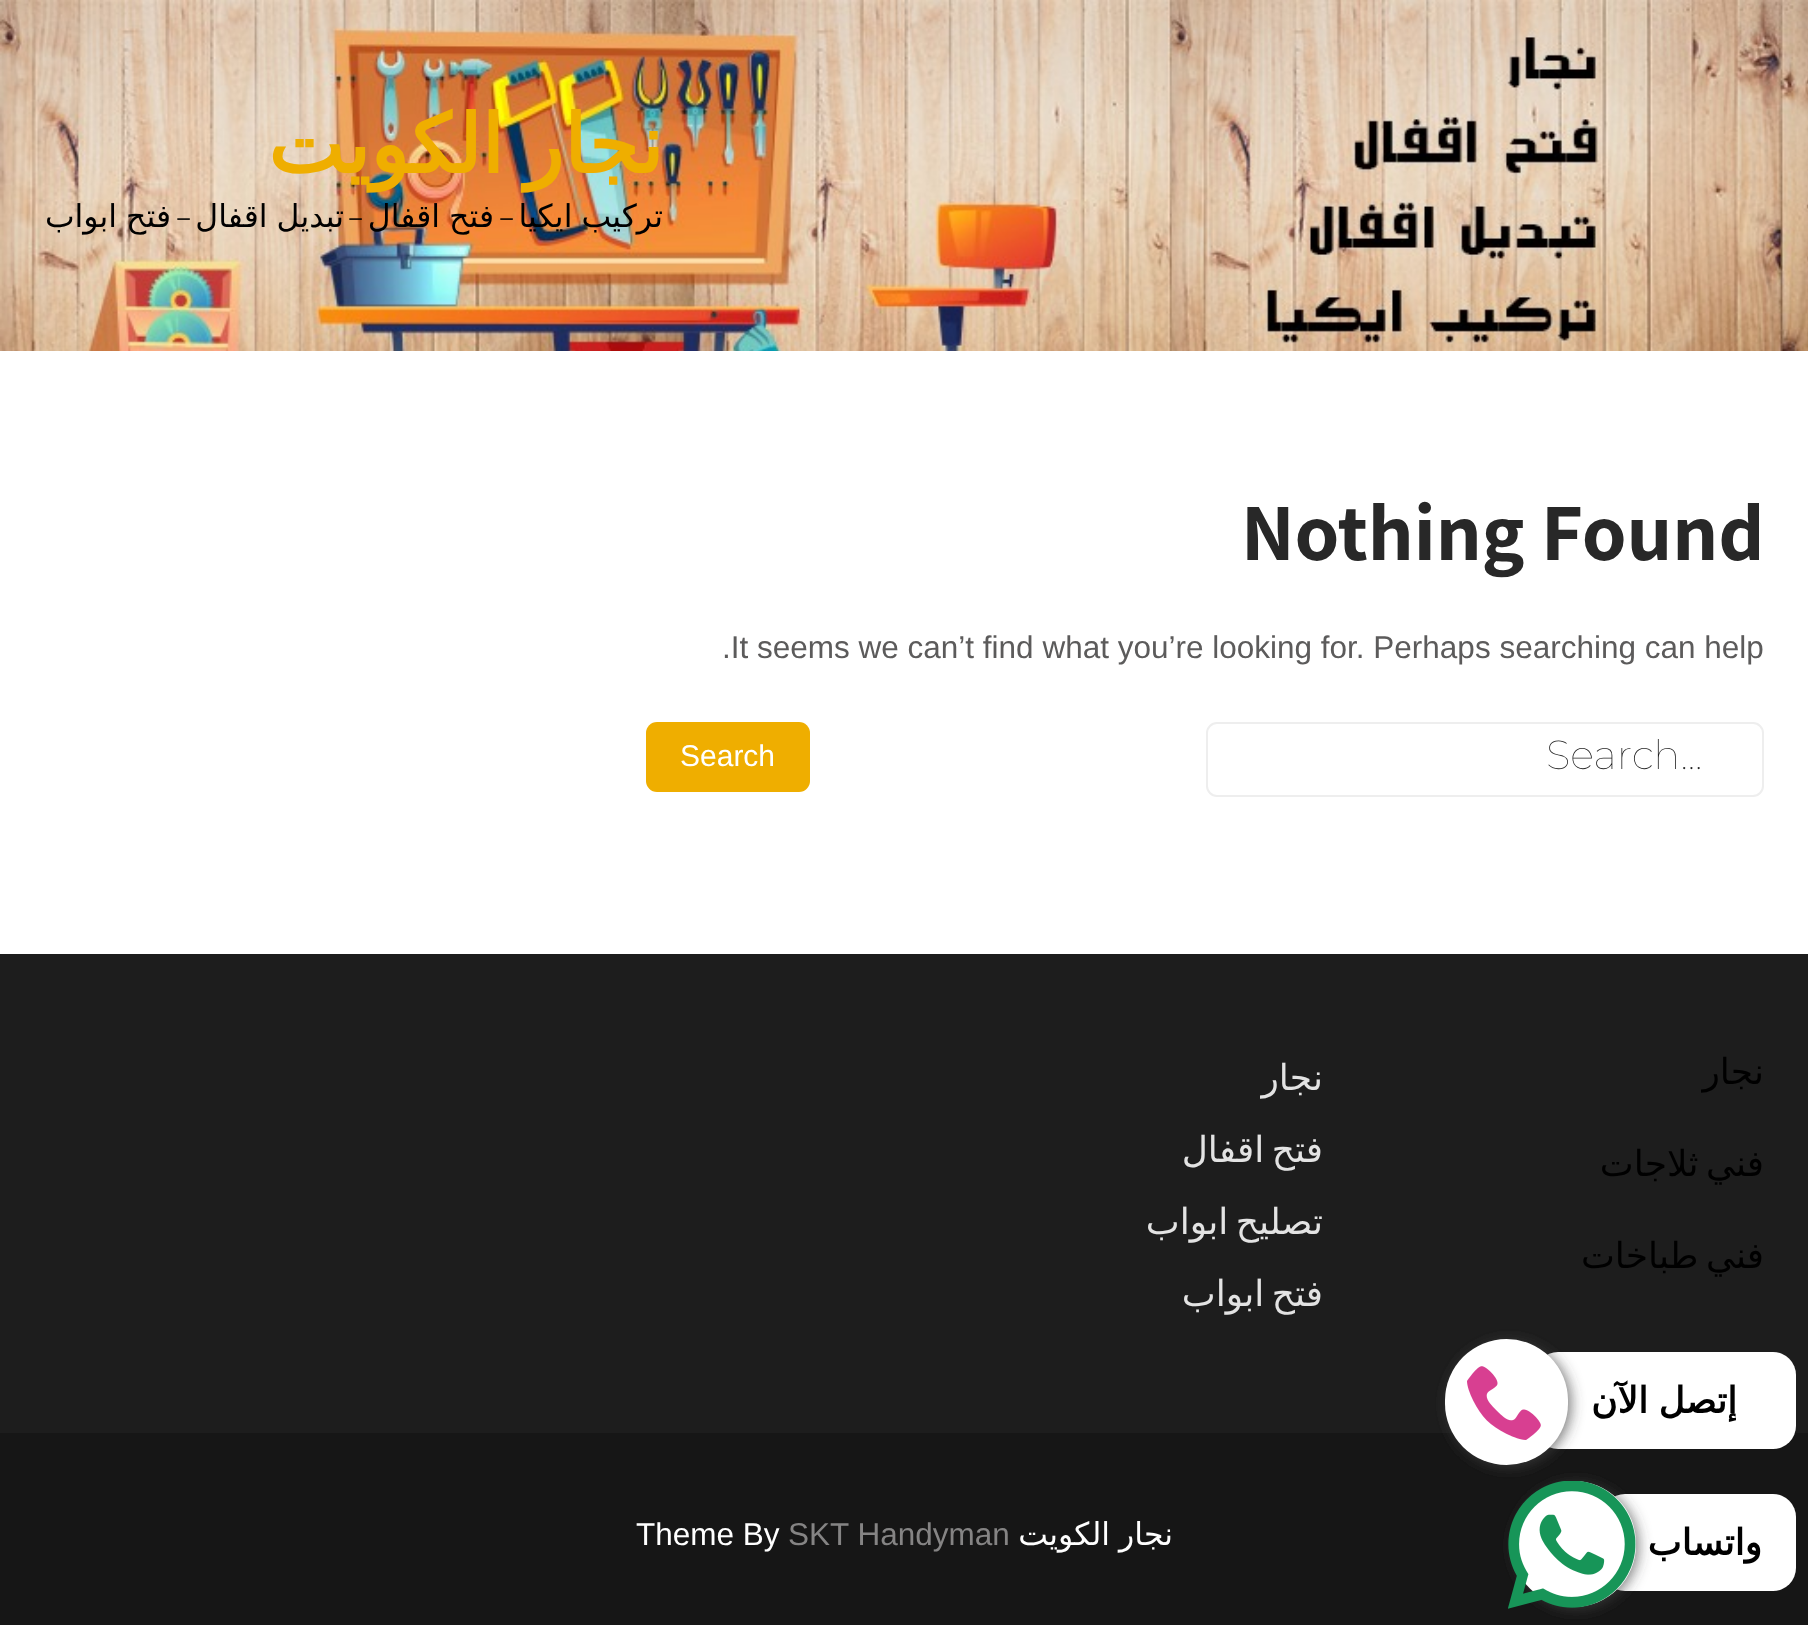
<svg xmlns="http://www.w3.org/2000/svg" width="1808" height="1638" viewBox="0 0 1808 1638">
  <defs>
    <filter id="blur1" x="-50%" y="-200%" width="200%" height="500%"><feGaussianBlur stdDeviation="7"/></filter>
  </defs>
  <rect width="100%" height="100%" fill="#ffffff"/>
  <image x="0" y="0" width="1808" height="351" href="img1.png"/>
  <text x="663" y="173" word-spacing="-5" font-family="DejaVu Sans" font-size="81" font-weight="bold" direction="rtl" fill="#efae00">نجار الكويت</text>
  <text x="663" y="227" word-spacing="-1" font-family="DejaVu Sans" font-size="31.5" direction="rtl" fill="#000000">تركيب ايكيا</text>
  <text x="514" y="227" font-family="Assistant" font-size="31.5" direction="rtl" fill="#000000">–</text>
  <text x="494" y="227" word-spacing="-1" font-family="DejaVu Sans" font-size="31.5" direction="rtl" fill="#000000">فتح اقفال</text>
  <text x="363" y="227" font-family="Assistant" font-size="31.5" direction="rtl" fill="#000000">–</text>
  <text x="344" y="227" word-spacing="-1" font-family="DejaVu Sans" font-size="31.5" direction="rtl" fill="#000000">تبديل اقفال</text>
  <text x="191" y="227" font-family="Assistant" font-size="31.5" direction="rtl" fill="#000000">–</text>
  <text x="171" y="227" word-spacing="-1" font-family="DejaVu Sans" font-size="31.5" direction="rtl" fill="#000000">فتح ابواب</text>
  <text x="1241" y="560" font-family="Assistant" font-size="81" font-weight="bold" fill="#282828">Nothing Found</text>
  <text x="722" y="658" font-family="Liberation Sans" font-size="31.5" fill="#5c5b5b">.It seems we can’t find what you’re looking for. Perhaps searching can help</text>
  <rect x="1207" y="723" width="556" height="73" rx="10" fill="none" stroke="#eeeeee" stroke-width="2"/>
  <text x="1546" y="769" font-family="Montserrat" font-size="40.5" font-weight="100" fill="#1e1e1e">Search...</text>
  <rect x="646" y="722" width="164" height="70" rx="11" fill="#efae00"/>
  <text x="680" y="766" font-family="Liberation Sans" font-size="30" fill="#ffffff">Search</text>
  <rect x="0" y="954" width="1808" height="479" fill="#1d1d1d"/>
  <text x="1764" y="1084" font-family="DejaVu Sans" font-size="36" direction="rtl" fill="#000000">نجار</text>
  <text x="1764" y="1176" word-spacing="-4" font-family="DejaVu Sans" font-size="36" direction="rtl" fill="#000000">فني ثلاجات</text>
  <text x="1764" y="1268" word-spacing="-4" font-family="DejaVu Sans" font-size="36" direction="rtl" fill="#000000">فني طباخات</text>
  <text x="1323" y="1090" font-family="DejaVu Sans" font-size="36" direction="rtl" fill="#e3e3e3">نجار</text>
  <text x="1323" y="1162" word-spacing="-4" font-family="DejaVu Sans" font-size="36" direction="rtl" fill="#e3e3e3">فتح اقفال</text>
  <text x="1323" y="1234" word-spacing="-4" font-family="DejaVu Sans" font-size="36" direction="rtl" fill="#e3e3e3">تصليح ابواب</text>
  <text x="1323" y="1306" word-spacing="-4" font-family="DejaVu Sans" font-size="36" direction="rtl" fill="#e3e3e3">فتح ابواب</text>
  <rect x="0" y="1433" width="1808" height="192" fill="#161616"/>
  <rect x="1535" y="1352" width="261" height="97" rx="23" fill="#ffffff"/>
  <text x="1737" y="1413" word-spacing="-1" font-family="DejaVu Sans" font-size="36" font-weight="bold" direction="rtl" fill="#000000">إتصل الآن</text>
  <rect x="1447" y="1341" width="124" height="126" rx="62" fill="#444444" fill-opacity="0.71" filter="url(#blur1)"/>
  <rect x="1445" y="1339" width="123" height="126" rx="61.5" fill="#ffffff"/>
  <image x="1467" y="1366" width="74" height="74" href="img2.png"/>
  <rect x="1602" y="1494" width="194" height="97" rx="23" fill="#ffffff"/>
  <text x="1762" y="1555" font-family="DejaVu Sans" font-size="36" font-weight="bold" direction="rtl" fill="#000000">واتساب</text>
  <rect x="1514" y="1483" width="124" height="126" rx="62" fill="#444444" fill-opacity="0.71" filter="url(#blur1)"/>
  <rect x="1512" y="1481" width="124" height="126" rx="62" fill="#ffffff"/>
  <image x="1508" y="1481" width="128" height="128" href="img3.png"/>
  <text x="1173" y="1545" word-spacing="-1" font-family="DejaVu Sans" font-size="31.5" direction="rtl" fill="#ffffff">نجار الكويت</text>
  <text x="788" y="1545" font-family="Liberation Sans" font-size="31.5" fill="#858484">SKT Handyman</text>
  <text x="636" y="1545" font-family="Liberation Sans" font-size="31.5" fill="#ffffff">Theme By</text>
</svg>
